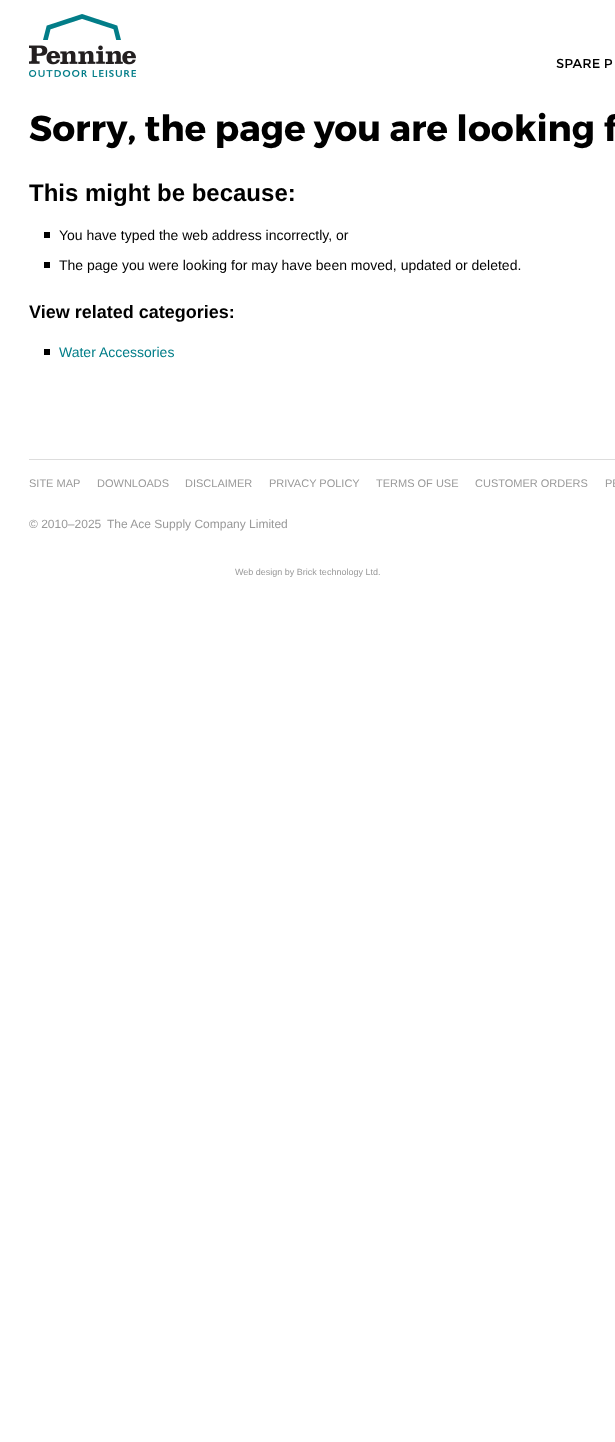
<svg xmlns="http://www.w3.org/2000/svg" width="615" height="1442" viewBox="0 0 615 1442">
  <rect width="100%" height="100%" fill="#ffffff"/>
  <image x="29" y="14" width="107" height="63" href="img1.png"/>
  <text x="556" y="68" font-family="Montserrat" font-size="13" fill="#000000">SPARE P</text>
  <text x="29" y="141" font-family="Montserrat" font-size="36" font-weight="bold" fill="#000000">Sorry, the page you are looking f</text>
  <text x="29" y="201" font-family="Liberation Sans" font-size="24" font-weight="bold" fill="#000000">This might be because:</text>
  <rect x="44" y="232" width="6" height="6" fill="#000000"/>
  <text x="59" y="240" font-family="Liberation Sans" font-size="14" fill="#000000">You have typed the web address incorrectly, or</text>
  <rect x="44" y="262" width="6" height="6" fill="#000000"/>
  <text x="59" y="270" font-family="Liberation Sans" font-size="14" fill="#000000">The page you were looking for may have been moved, updated or deleted.</text>
  <text x="29" y="318" font-family="Liberation Sans" font-size="18" font-weight="bold" fill="#000000">View related categories:</text>
  <rect x="44" y="349" width="6" height="6" fill="#000000"/>
  <text x="59" y="357" font-family="Liberation Sans" font-size="14" fill="#007d88">Water Accessories</text>
  <rect x="29" y="459" width="586" height="1" fill="#dddddd"/>
  <text x="29" y="487" font-family="Liberation Sans" font-size="11" fill="#999999">SITE MAP</text>
  <text x="97" y="487" font-family="Liberation Sans" font-size="11" fill="#999999">DOWNLOADS</text>
  <text x="185" y="487" font-family="Liberation Sans" font-size="11" fill="#999999">DISCLAIMER</text>
  <text x="269" y="487" font-family="Liberation Sans" font-size="11" fill="#999999">PRIVACY POLICY</text>
  <text x="376" y="487" font-family="Liberation Sans" font-size="11" fill="#999999">TERMS OF USE</text>
  <text x="475" y="487" font-family="Liberation Sans" font-size="11" fill="#999999">CUSTOMER ORDERS</text>
  <text x="605" y="487" font-family="Liberation Sans" font-size="11" fill="#999999">PE</text>
  <text x="29" y="528" font-family="Liberation Sans" font-size="12" fill="#999999">© 2010–2025</text>
  <text x="107" y="528" font-family="Liberation Sans" font-size="12" fill="#999999">The Ace Supply Company Limited</text>
  <text x="235" y="575" font-family="Liberation Sans" font-size="9" fill="#999999">Web design by Brick technology Ltd.</text>
</svg>
